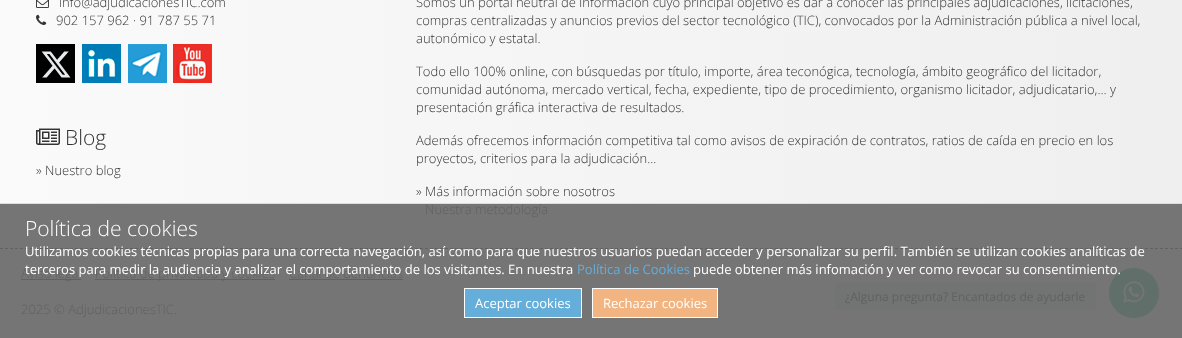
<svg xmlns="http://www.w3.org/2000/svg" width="1182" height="338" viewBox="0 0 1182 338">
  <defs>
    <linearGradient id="g1" gradientUnits="userSpaceOnUse" x1="0" y1="87" x2="1182" y2="86"><stop offset="0" stop-color="#fafafa"/><stop offset="1" stop-color="#efefef"/></linearGradient>
  </defs>
  <rect width="100%" height="100%" fill="#757575"/>
  <rect x="0" y="0" width="1182" height="203" fill="url(#g1)"/>
  <image x="36" y="0" width="13" height="8" href="img1.png"/>
  <text x="59" y="7" font-family="Open Sans" font-size="13" font-weight="300" fill="#333333">info@adjudicacionesTIC.com</text>
  <image x="36" y="14" width="11" height="11" href="img2.png"/>
  <text x="56" y="25" font-family="Open Sans" font-size="13" font-weight="300" fill="#333333">902 157 962 · 91 787 55 71</text>
  <image x="36" y="44" width="39" height="39" href="img3.png"/>
  <image x="82" y="44" width="39" height="39" href="img4.png"/>
  <image x="128" y="44" width="39" height="39" href="img5.png"/>
  <image x="173" y="44" width="39" height="39" href="img6.png"/>
  <image x="36" y="128" width="24" height="17" href="img7.png"/>
  <text x="65" y="145" font-family="Open Sans" font-size="21" font-weight="300" fill="#333333">Blog</text>
  <text x="36" y="175" font-family="Open Sans" font-size="13" font-weight="300" fill="#333333">» Nuestro blog</text>
  <text x="416" y="7" font-family="Open Sans" font-size="13" font-weight="300" fill="#333333">Somos un portal neutral de información cuyo principal objetivo es dar a conocer las principales adjudicaciones, licitaciones,</text>
  <text x="416" y="25" font-family="Open Sans" font-size="13" font-weight="300" fill="#333333">compras centralizadas y anuncios previos del sector tecnológico (TIC), convocados por la Administración pública a nivel local,</text>
  <text x="416" y="43" font-family="Open Sans" font-size="13" font-weight="300" fill="#333333">autonómico y estatal.</text>
  <text x="416" y="76" font-family="Open Sans" font-size="13" font-weight="300" fill="#333333">Todo ello 100% online, con búsquedas por título, importe, área teconógica, tecnología, ámbito geográfico del licitador,</text>
  <text x="416" y="94" font-family="Open Sans" font-size="13" font-weight="300" fill="#333333">comunidad autónoma, mercado vertical, fecha, expediente, tipo de procedimiento, organismo licitador, adjudicatario,... y</text>
  <text x="416" y="112" font-family="Open Sans" font-size="13" font-weight="300" fill="#333333">presentación gráfica interactiva de resultados.</text>
  <text x="416" y="145" font-family="Open Sans" font-size="13" font-weight="300" fill="#333333">Además ofrecemos información competitiva tal como avisos de expiración de contratos, ratios de caída en precio en los</text>
  <text x="416" y="163" font-family="Open Sans" font-size="13" font-weight="300" fill="#333333">proyectos, criterios para la adjudicación...</text>
  <text x="416" y="196" font-family="Open Sans" font-size="13" font-weight="300" fill="#333333">» Más información sobre nosotros</text>
  <text x="425" y="214" font-family="Open Sans" font-size="13" font-weight="300" fill="#616161">Nuestra metodología</text>
  <path d="M0 248.5H1182" fill="none" stroke="#616161" stroke-dasharray="3 2"/>
  <rect x="21" y="279" width="60" height="1" fill="#616161"/>
  <text x="21" y="278" font-family="Open Sans" font-size="13" font-weight="300" fill="#616161">Aviso legal</text>
  <rect x="95" y="279" width="180" height="1" fill="#616161"/>
  <text x="95" y="278" font-family="Open Sans" font-size="13" font-weight="300" fill="#616161">Política de privacidad y cookies</text>
  <text x="289" y="278" font-family="Open Sans" font-size="13" font-weight="300" fill="#616161">Canal de denuncias</text>
  <rect x="289" y="279" width="114" height="1" fill="#616161"/>
  <text x="21" y="314" font-family="Open Sans" font-size="13" font-weight="300" fill="#616161">2025 © AdjudicacionesTIC.</text>
  <rect x="835" y="283" width="261" height="27" rx="4" fill="#717473"/>
  <text x="845" y="301" font-family="Open Sans" font-size="12" fill="#616161">¿Alguna pregunta? Encantados de ayudarle</text>
  <circle cx="1134" cy="293" r="25" fill="#606f69"/>
  <image x="1123" y="281" width="22" height="22" href="img8.png"/>
  <rect x="0" y="203" width="1182" height="1" fill="#dddddd"/>
  <text x="25" y="236" font-family="Open Sans" font-size="21" font-weight="300" fill="#ffffff">Política de cookies</text>
  <text x="25" y="256" font-family="Open Sans" font-size="13" fill="#ffffff">Utilizamos cookies técnicas propias para una correcta navegación, así como para que nuestros usuarios puedan acceder y personalizar su perfil. También se utilizan cookies analíticas de</text>
  <text x="25" y="274" font-family="Open Sans" font-size="13" fill="#ffffff">terceros para medir la audiencia y analizar el comportamiento de los visitantes. En nuestra</text>
  <text x="577" y="274" font-family="Open Sans" font-size="13" fill="#64aed9">Política de Cookies</text>
  <text x="693" y="274" font-family="Open Sans" font-size="13" fill="#ffffff">puede obtener más infomación y ver como revocar su consentimiento.</text>
  <rect x="464.5" y="288.5" width="117" height="29" fill="#64aed9" stroke="#ffffff"/>
  <text x="475" y="308" font-family="Open Sans" font-size="13" fill="#ffffff">Aceptar cookies</text>
  <rect x="592.5" y="288.5" width="125" height="29" fill="#f2b481" stroke="#ffffff"/>
  <text x="603" y="308" font-family="Open Sans" font-size="13" fill="#ffffff">Rechazar cookies</text>
</svg>
